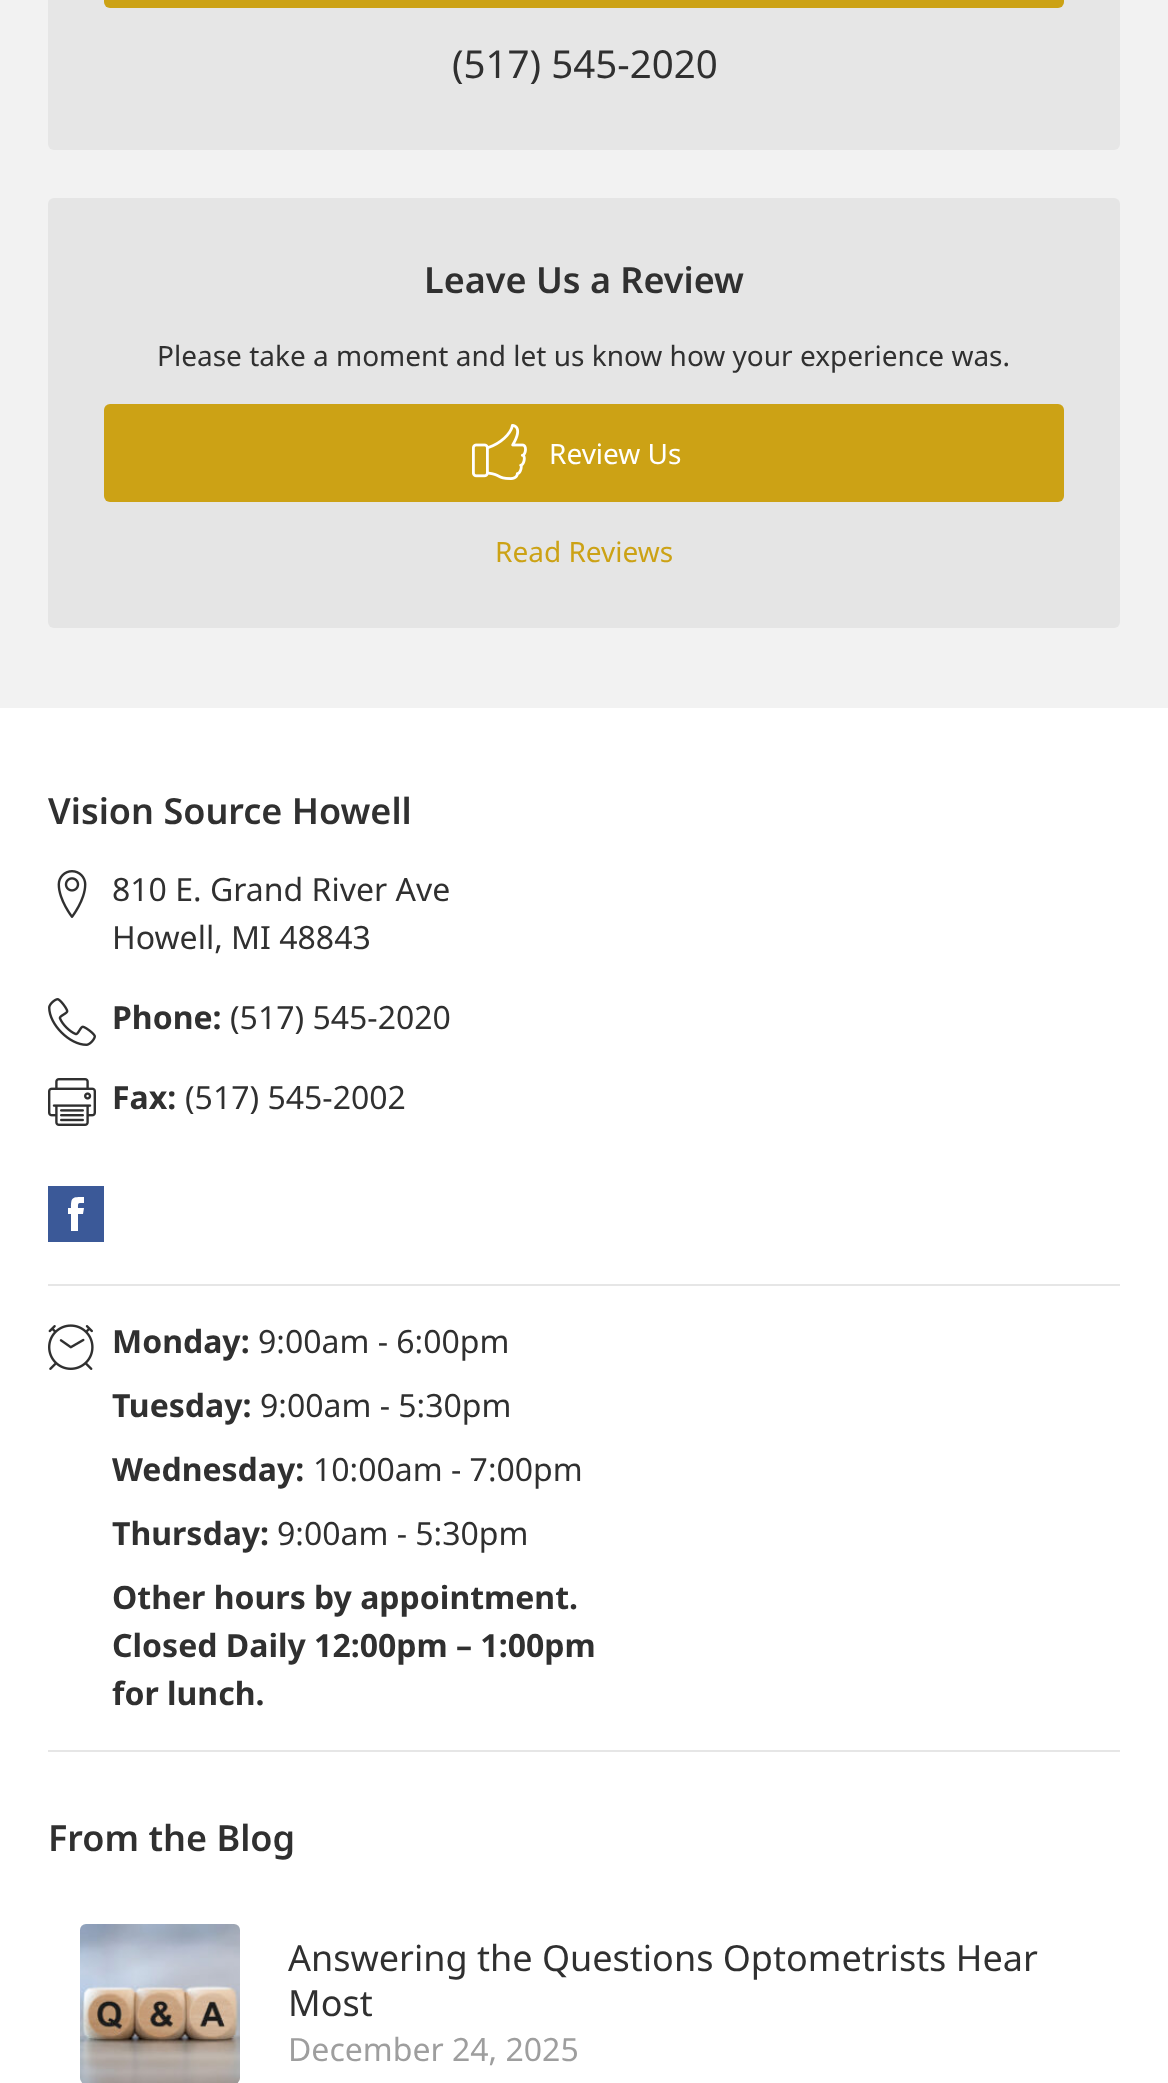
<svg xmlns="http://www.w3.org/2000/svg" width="1168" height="2083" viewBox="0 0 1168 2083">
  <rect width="100%" height="100%" fill="#f2f2f2"/>
  <rect x="48" y="-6" width="1072" height="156" rx="6" fill="#e6e6e6"/>
  <rect x="104" y="-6" width="960" height="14" rx="6" fill="#cca215"/>
  <text x="452" y="78" font-family="Noto Sans" font-size="38.5" fill="#303030">(517) 545-2020</text>
  <rect x="48" y="198" width="1072" height="430" rx="6" fill="#e5e5e5"/>
  <text x="424" y="293" font-family="Noto Sans" font-size="36" font-weight="600" fill="#303030">Leave Us a Review</text>
  <text x="157" y="366" font-family="Noto Sans" font-size="28" fill="#303030">Please take a moment and let us know how your experience was.</text>
  <rect x="104" y="404" width="960" height="98" rx="6" fill="#cca215"/>
  <image x="472" y="424" width="55" height="56" href="img1.png"/>
  <text x="549" y="464" font-family="Noto Sans" font-size="28" fill="#ffffff">Review Us</text>
  <text x="495" y="562" font-family="Noto Sans" font-size="28" fill="#cca215">Read Reviews</text>
  <rect x="0" y="708" width="1168" height="1375" fill="#ffffff"/>
  <text x="48" y="824" font-family="Noto Sans" font-size="36" font-weight="600" fill="#303030">Vision Source Howell</text>
  <image x="57" y="870" width="30" height="48" href="img2.png"/>
  <text x="112" y="901" font-family="Noto Sans" font-size="32" fill="#303030">810 E. Grand River Ave</text>
  <text x="112" y="949" font-family="Noto Sans" font-size="32" fill="#303030">Howell, MI 48843</text>
  <image x="48" y="998" width="48" height="48" href="img3.png"/>
  <text x="112" y="1029" font-family="Noto Sans" font-size="32" font-weight="bold" fill="#303030">Phone:</text>
  <text x="230" y="1029" font-family="Noto Sans" font-size="32" fill="#303030">(517) 545-2020</text>
  <image x="48" y="1078" width="48" height="48" href="img4.png"/>
  <text x="112" y="1109" font-family="Noto Sans" font-size="32" font-weight="bold" fill="#303030">Fax:</text>
  <text x="185" y="1109" font-family="Noto Sans" font-size="32" fill="#303030">(517) 545-2002</text>
  <path d="M48 1242H104V1186H48ZM68 1208H71C71 1197 72 1197 84 1197V1203C78 1203 78 1202 78 1208H84L83 1214H78V1231H71V1214H68Z" fill="#3b5998"/>
  <rect x="48" y="1284" width="1072" height="2" fill="#e6e6e6"/>
  <image x="48" y="1324" width="46" height="46" href="img5.png"/>
  <text x="112" y="1353" font-family="Noto Sans" font-size="32" font-weight="bold" fill="#303030">Monday:</text>
  <text x="258" y="1353" font-family="Noto Sans" font-size="32" fill="#303030">9:00am - 6:00pm</text>
  <text x="112" y="1417" font-family="Noto Sans" font-size="32" font-weight="bold" fill="#303030">Tuesday:</text>
  <text x="260" y="1417" font-family="Noto Sans" font-size="32" fill="#303030">9:00am - 5:30pm</text>
  <text x="112" y="1481" font-family="Noto Sans" font-size="32" font-weight="bold" fill="#303030">Wednesday:</text>
  <text x="313" y="1481" font-family="Noto Sans" font-size="32" fill="#303030">10:00am - 7:00pm</text>
  <text x="112" y="1545" font-family="Noto Sans" font-size="32" font-weight="bold" fill="#303030">Thursday:</text>
  <text x="277" y="1545" font-family="Noto Sans" font-size="32" fill="#303030">9:00am - 5:30pm</text>
  <text x="112" y="1609" font-family="Noto Sans" font-size="32" font-weight="bold" fill="#303030">Other hours by appointment.</text>
  <text x="112" y="1657" font-family="Noto Sans" font-size="32" font-weight="bold" fill="#303030">Closed Daily 12:00pm – 1:00pm</text>
  <text x="112" y="1705" font-family="Noto Sans" font-size="32" font-weight="bold" fill="#303030">for lunch.</text>
  <rect x="48" y="1750" width="1072" height="2" fill="#e6e6e6"/>
  <text x="48" y="1851" font-family="Noto Sans" font-size="36" font-weight="600" fill="#303030">From the Blog</text>
  <image x="80" y="1924" width="160" height="159" href="img6.png"/>
  <text x="288" y="1971" font-family="Noto Sans" font-size="36" fill="#303030">Answering the Questions Optometrists Hear</text>
  <text x="288" y="2016" font-family="Noto Sans" font-size="36" fill="#303030">Most</text>
  <text x="288" y="2061" font-family="Noto Sans" font-size="32" fill="#9e9e9e">December 24, 2025</text>
</svg>
